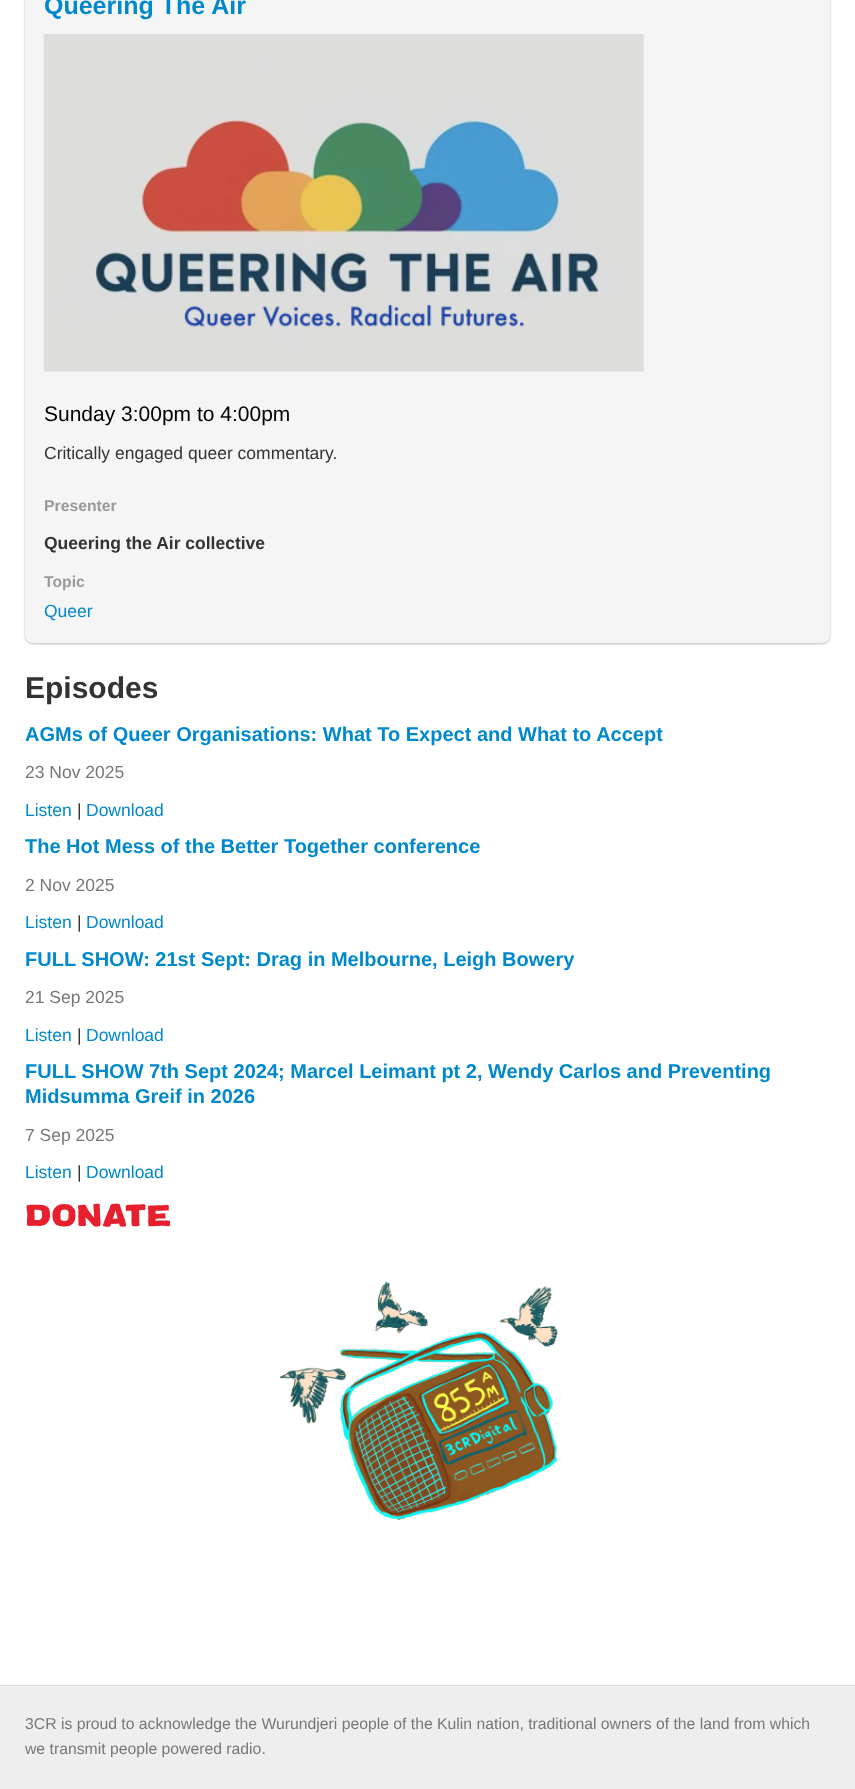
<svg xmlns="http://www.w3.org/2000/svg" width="855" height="1789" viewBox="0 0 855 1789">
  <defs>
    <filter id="blur1" x="-50%" y="-200%" width="200%" height="500%"><feGaussianBlur stdDeviation="1"/></filter>
  </defs>
  <rect width="100%" height="100%" fill="#ffffff"/>
  <rect x="25" y="-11" width="805" height="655" rx="8" fill="#bbbbbb" filter="url(#blur1)"/>
  <rect x="25" y="-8" width="805" height="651" rx="8" fill="#f5f5f5"/>
  <text x="44" y="14" font-family="Liberation Sans" font-size="25" font-weight="bold" fill="#0088cc">Queering The Air</text>
  <image x="43" y="34" width="601" height="338" href="img1.png"/>
  <text x="44" y="421" font-family="Liberation Sans" font-size="21" fill="#000000">Sunday 3:00pm to 4:00pm</text>
  <text x="44" y="459" font-family="Liberation Sans" font-size="17.5" fill="#333333">Critically engaged queer commentary.</text>
  <text x="44" y="511" font-family="Liberation Sans" font-size="15.75" font-weight="bold" fill="#999999">Presenter</text>
  <text x="44" y="549" font-family="Liberation Sans" font-size="17.5" font-weight="bold" fill="#333333">Queering the Air collective</text>
  <text x="44" y="587" font-family="Liberation Sans" font-size="15.75" font-weight="bold" fill="#999999">Topic</text>
  <text x="44" y="617" font-family="Liberation Sans" font-size="17.5" fill="#0088cc">Queer</text>
  <text x="25" y="698" font-family="Liberation Sans" font-size="30" font-weight="bold" fill="#333333">Episodes</text>
  <text x="25" y="741" font-family="Liberation Sans" font-size="20" font-weight="bold" fill="#0088cc">AGMs of Queer Organisations: What To Expect and What to Accept</text>
  <text x="25" y="778" font-family="Liberation Sans" font-size="17.5" fill="#777777">23 Nov 2025</text>
  <text x="25" y="816" font-family="Liberation Sans" font-size="17.5" fill="#0088cc">Listen</text>
  <text x="77" y="816" font-family="Liberation Sans" font-size="17.5" fill="#333333">|</text>
  <text x="86" y="816" font-family="Liberation Sans" font-size="17.5" fill="#0088cc">Download</text>
  <text x="25" y="853" font-family="Liberation Sans" font-size="20" font-weight="bold" fill="#0088cc">The Hot Mess of the Better Together conference</text>
  <text x="25" y="891" font-family="Liberation Sans" font-size="17.5" fill="#777777">2 Nov 2025</text>
  <text x="25" y="928" font-family="Liberation Sans" font-size="17.5" fill="#0088cc">Listen</text>
  <text x="77" y="928" font-family="Liberation Sans" font-size="17.5" fill="#333333">|</text>
  <text x="86" y="928" font-family="Liberation Sans" font-size="17.5" fill="#0088cc">Download</text>
  <text x="25" y="966" font-family="Liberation Sans" font-size="20" font-weight="bold" fill="#0088cc">FULL SHOW: 21st Sept: Drag in Melbourne, Leigh Bowery</text>
  <text x="25" y="1003" font-family="Liberation Sans" font-size="17.5" fill="#777777">21 Sep 2025</text>
  <text x="25" y="1041" font-family="Liberation Sans" font-size="17.5" fill="#0088cc">Listen</text>
  <text x="77" y="1041" font-family="Liberation Sans" font-size="17.5" fill="#333333">|</text>
  <text x="86" y="1041" font-family="Liberation Sans" font-size="17.5" fill="#0088cc">Download</text>
  <text x="25" y="1078" font-family="Liberation Sans" font-size="20" font-weight="bold" fill="#0088cc">FULL SHOW 7th Sept 2024; Marcel Leimant pt 2, Wendy Carlos and Preventing</text>
  <text x="25" y="1103" font-family="Liberation Sans" font-size="20" font-weight="bold" fill="#0088cc">Midsumma Greif in 2026</text>
  <text x="25" y="1141" font-family="Liberation Sans" font-size="17.5" fill="#777777">7 Sep 2025</text>
  <text x="25" y="1178" font-family="Liberation Sans" font-size="17.5" fill="#0088cc">Listen</text>
  <text x="77" y="1178" font-family="Liberation Sans" font-size="17.5" fill="#333333">|</text>
  <text x="86" y="1178" font-family="Liberation Sans" font-size="17.5" fill="#0088cc">Download</text>
  <text x="25" y="1226" font-family="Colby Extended" font-size="30" fill="#e7202e">DONATE</text>
  <image x="264" y="1281" width="294" height="239" href="img2.png"/>
  <rect x="0" y="1686" width="855" height="103" fill="#eeeeee"/>
  <rect x="0" y="1685" width="855" height="1" fill="#dddddd"/>
  <text x="25" y="1729" font-family="Liberation Sans" font-size="15.75" fill="#777777">3CR is proud to acknowledge the Wurundjeri people of the Kulin nation, traditional owners of the land from which</text>
  <text x="25" y="1754" font-family="Liberation Sans" font-size="15.75" fill="#777777">we transmit people powered radio.</text>
</svg>
